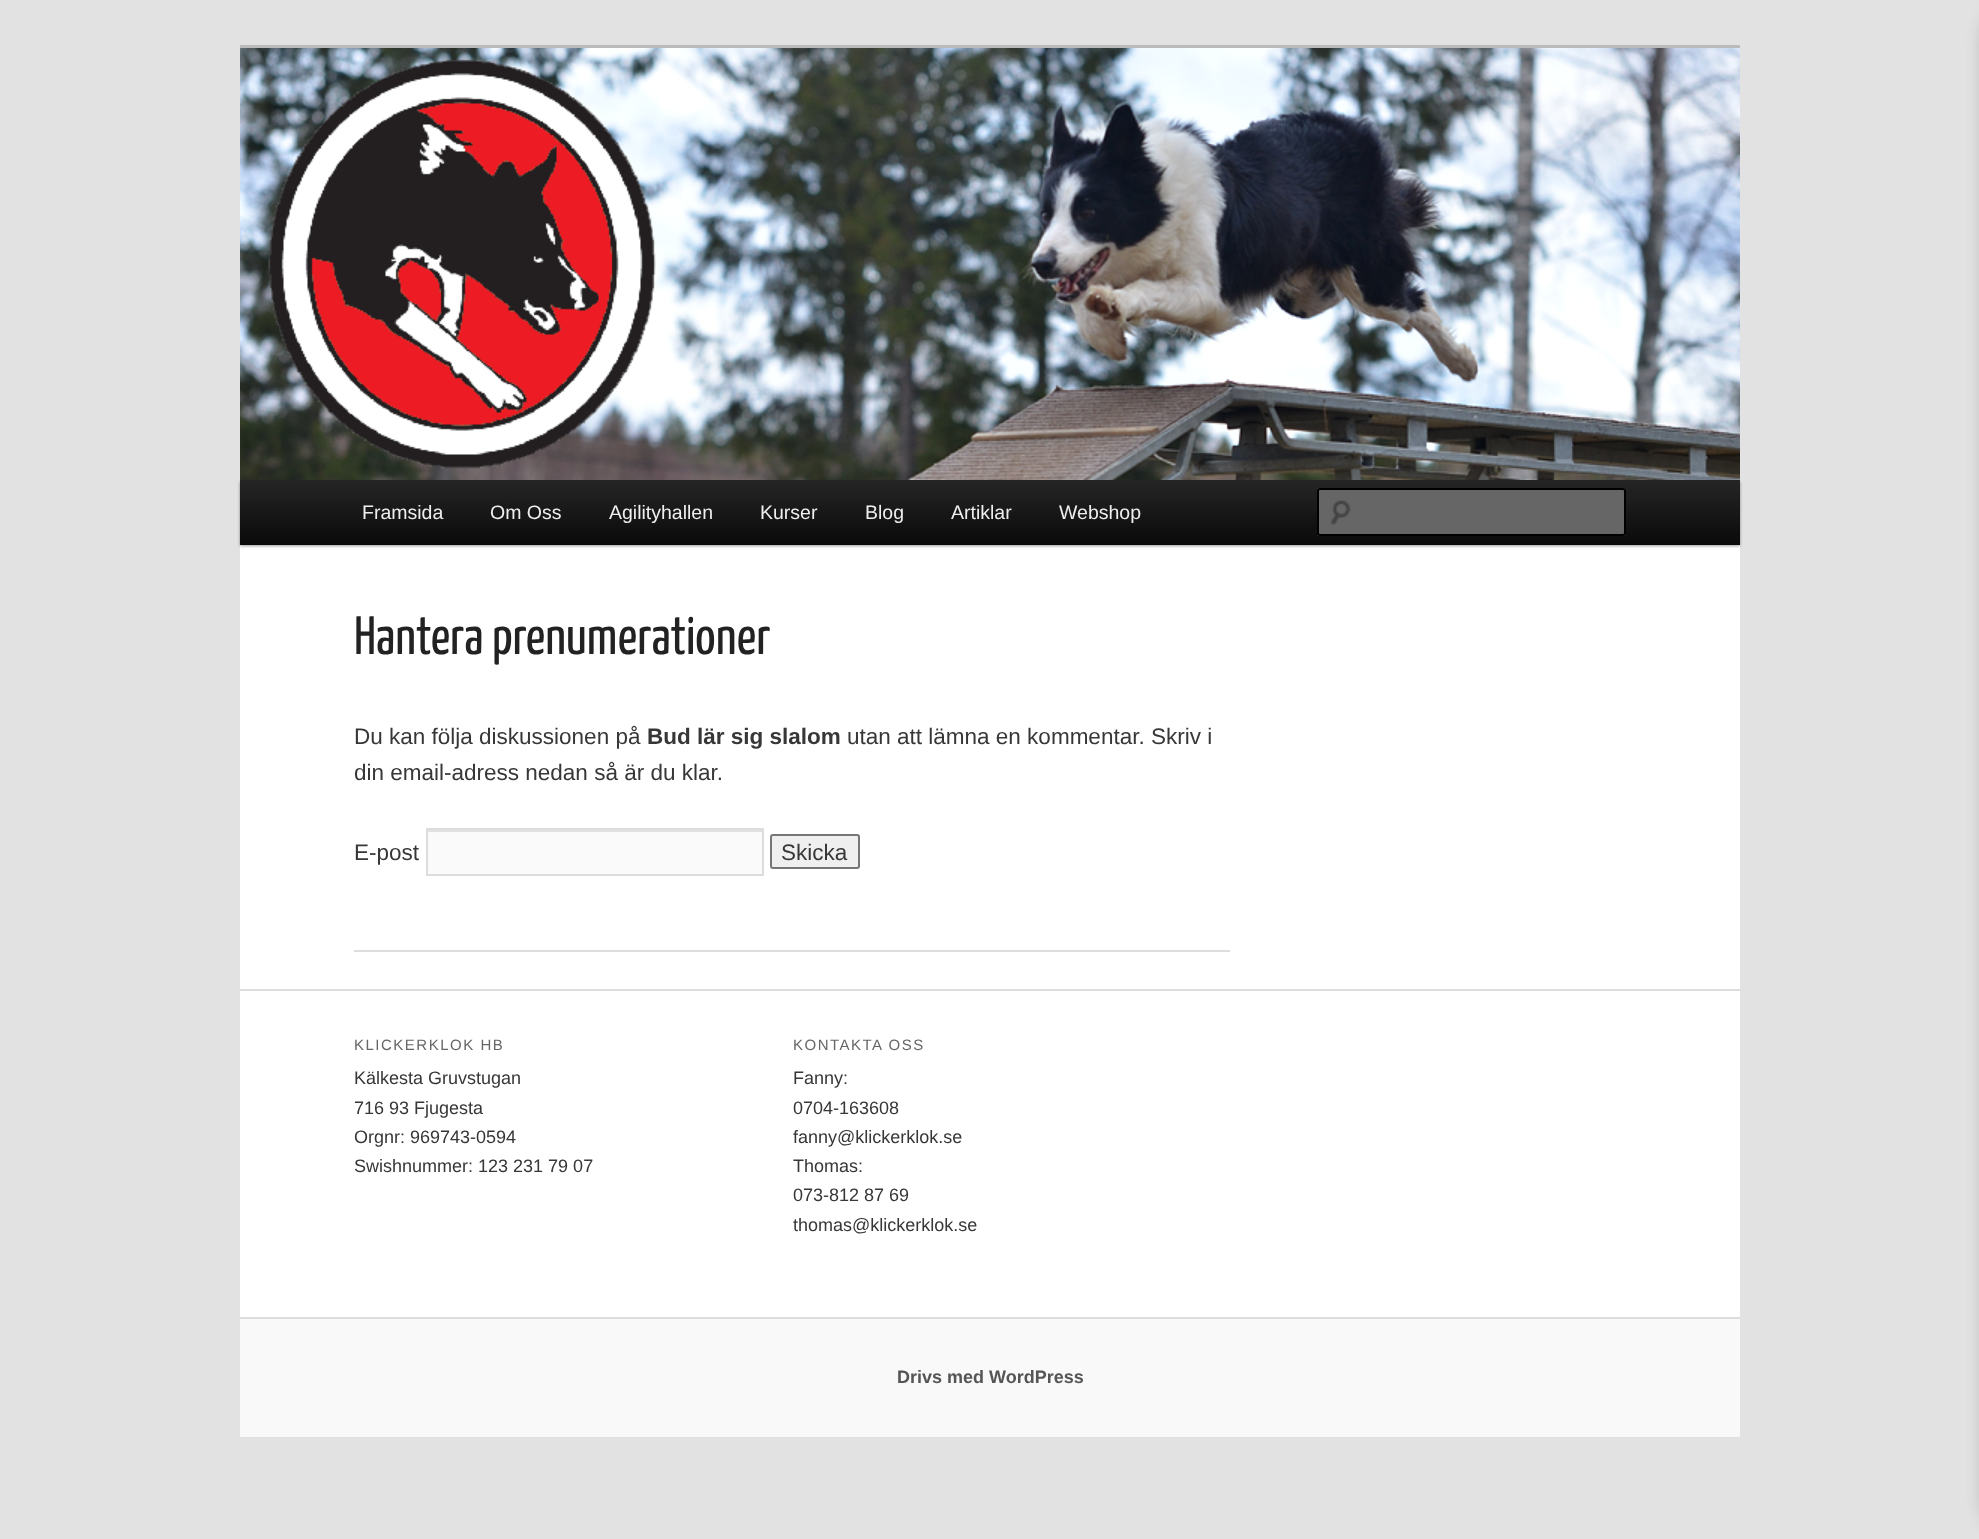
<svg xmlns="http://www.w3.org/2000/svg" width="1979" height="1539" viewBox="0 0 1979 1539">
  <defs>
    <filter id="blur1" x="-50%" y="-200%" width="200%" height="500%"><feGaussianBlur stdDeviation="1.5"/></filter>
    <linearGradient id="g1" gradientUnits="userSpaceOnUse" x1="990" y1="480" x2="990" y2="545"><stop offset="0" stop-color="#252525"/><stop offset="1" stop-color="#0a0a0a"/></linearGradient>
    <filter id="blur2" x="-50%" y="-200%" width="200%" height="500%"><feGaussianBlur stdDeviation="7.5"/></filter>
  </defs>
  <rect width="100%" height="100%" fill="#e2e2e2"/>
  <rect x="240" y="545" width="1500" height="772" fill="#ffffff"/>
  <rect x="240" y="45" width="1500" height="3" fill="#bbbbbb"/>
  <rect x="240" y="482" width="1500" height="64" fill="#000000" fill-opacity="0.4" filter="url(#blur1)"/>
  <image x="240" y="48" width="1500" height="432" href="img1.png"/>
  <rect x="240" y="480" width="1500" height="65" fill="url(#g1)"/>
  <text x="362" y="519" font-family="Liberation Sans" font-size="19.5" fill="#eeeeee">Framsida</text>
  <text x="490" y="519" font-family="Liberation Sans" font-size="19.5" fill="#eeeeee">Om Oss</text>
  <text x="609" y="519" font-family="Liberation Sans" font-size="19.5" fill="#eeeeee">Agilityhallen</text>
  <text x="760" y="519" font-family="Liberation Sans" font-size="19.5" fill="#eeeeee">Kurser</text>
  <text x="865" y="519" font-family="Liberation Sans" font-size="19.5" fill="#eeeeee">Blog</text>
  <text x="951" y="519" font-family="Liberation Sans" font-size="19.5" fill="#eeeeee">Artiklar</text>
  <text x="1059" y="519" font-family="Liberation Sans" font-size="19.5" fill="#eeeeee">Webshop</text>
  <rect x="1317" y="488" width="309" height="48" rx="3" fill="#666666"/>
  <image x="1330" y="500" width="21" height="25" href="img2.png"/>
  <rect x="1318" y="489" width="307" height="46" rx="2" fill="none" stroke="#000000" stroke-width="2"/>
  <rect x="354" y="950" width="876" height="2" fill="#dddddd"/>
  <text x="354" y="654" font-family="Yanone Kaffeesatz" font-size="54" font-weight="200" fill="#222222">Hantera prenumerationer</text>
  <text x="354" y="744" font-family="Liberation Sans" font-size="22.5" fill="#373737">Du kan följa diskussionen på</text>
  <text x="647" y="744" font-family="Liberation Sans" font-size="22.5" font-weight="bold" fill="#373737">Bud lär sig slalom</text>
  <text x="847" y="744" font-family="Liberation Sans" font-size="22.5" fill="#373737">utan att lämna en kommentar. Skriv i</text>
  <text x="354" y="780" font-family="Liberation Sans" font-size="22.5" fill="#373737">din email-adress nedan så är du klar.</text>
  <text x="354" y="860" font-family="Liberation Sans" font-size="22.5" fill="#373737">E-post</text>
  <rect x="428" y="832" width="334" height="42" fill="#fafafa"/>
  <rect x="428" y="830" width="334" height="2" fill="#e1e1e1"/>
  <rect x="427" y="829" width="336" height="46" fill="none" stroke="#dddddd" stroke-width="2"/>
  <rect x="771" y="835" width="88" height="33" rx="2" fill="#efefef" stroke="#767676" stroke-width="2"/>
  <text x="781" y="860" font-family="Liberation Sans" font-size="22.5" fill="#373737">Skicka</text>
  <rect x="240" y="989" width="1500" height="2" fill="#dddddd"/>
  <text x="354" y="1050" font-family="Liberation Sans" font-size="15" letter-spacing="1.5" fill="#666666">KLICKERKLOK HB</text>
  <text x="354" y="1084" font-family="Liberation Sans" font-size="18" fill="#373737">Kälkesta Gruvstugan</text>
  <text x="354" y="1114" font-family="Liberation Sans" font-size="18" fill="#373737">716 93 Fjugesta</text>
  <text x="354" y="1143" font-family="Liberation Sans" font-size="18" fill="#373737">Orgnr: 969743-0594</text>
  <text x="354" y="1172" font-family="Liberation Sans" font-size="18" fill="#373737">Swishnummer: 123 231 79 07</text>
  <text x="793" y="1050" font-family="Liberation Sans" font-size="15" letter-spacing="1.5" fill="#666666">KONTAKTA OSS</text>
  <text x="793" y="1084" font-family="Liberation Sans" font-size="18" fill="#373737">Fanny:</text>
  <text x="793" y="1114" font-family="Liberation Sans" font-size="18" fill="#373737">0704-163608</text>
  <text x="793" y="1143" font-family="Liberation Sans" font-size="18" fill="#373737">fanny@klickerklok.se</text>
  <text x="793" y="1172" font-family="Liberation Sans" font-size="18" fill="#373737">Thomas:</text>
  <text x="793" y="1201" font-family="Liberation Sans" font-size="18" fill="#373737">073-812 87 69</text>
  <text x="793" y="1231" font-family="Liberation Sans" font-size="18" fill="#373737">thomas@klickerklok.se</text>
  <rect x="240" y="1319" width="1500" height="118" fill="#f9f9f9"/>
  <rect x="240" y="1317" width="1500" height="2" fill="#dddddd"/>
  <text x="897" y="1383" font-family="Liberation Sans" font-size="18" font-weight="bold" fill="#555555">Drivs med WordPress</text>
  <rect x="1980" y="0" width="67" height="1539" rx="45" fill="#000000" fill-opacity="0.16" filter="url(#blur2)"/>
</svg>
